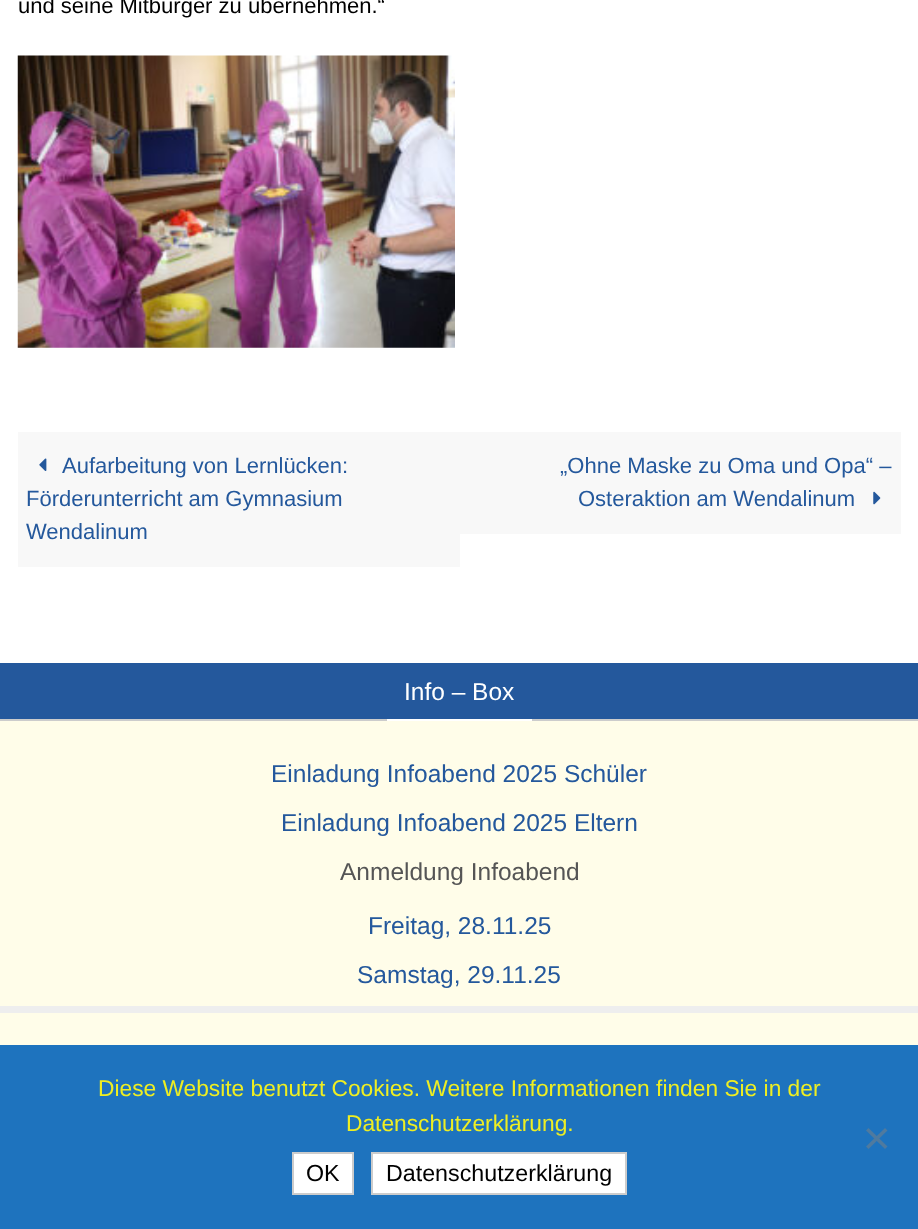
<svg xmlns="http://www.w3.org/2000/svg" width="918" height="1229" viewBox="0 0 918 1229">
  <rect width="100%" height="100%" fill="#ffffff"/>
  <text x="18" y="13" font-family="Liberation Sans" font-size="22" fill="#000000">und seine Mitbürger zu übernehmen.“</text>
  <image x="17" y="55" width="438" height="293" href="img1.png"/>
  <rect x="18" y="432" width="442" height="135" fill="#f8f8f8"/>
  <image x="39" y="458" width="8" height="13" href="img2.png"/>
  <text x="62" y="473" font-family="Liberation Sans" font-size="22" fill="#24589c">Aufarbeitung von Lernlücken:</text>
  <text x="26" y="506" font-family="Liberation Sans" font-size="22" fill="#24589c">Förderunterricht am Gymnasium</text>
  <text x="26" y="539" font-family="Liberation Sans" font-size="22" fill="#24589c">Wendalinum</text>
  <rect x="460" y="432" width="441" height="102" fill="#f8f8f8"/>
  <text x="560" y="473" font-family="Liberation Sans" font-size="22" fill="#24589c">„Ohne Maske zu Oma und Opa“ –</text>
  <text x="578" y="506" font-family="Liberation Sans" font-size="22" fill="#24589c">Osteraktion am Wendalinum</text>
  <image x="873" y="491" width="8" height="14" href="img3.png"/>
  <rect x="0" y="721" width="918" height="324" fill="#fffde9"/>
  <rect x="0" y="663" width="918" height="56" fill="#24589c"/>
  <rect x="0" y="719" width="918" height="2" fill="#cccccc"/>
  <rect x="387" y="719" width="145" height="2" fill="#ffffff"/>
  <text x="404" y="700" font-family="Liberation Sans" font-size="24.5" fill="#ffffff">Info – Box</text>
  <text x="271" y="782" font-family="Liberation Sans" font-size="24.5" fill="#24589c">Einladung Infoabend 2025 Schüler</text>
  <text x="281" y="831" font-family="Liberation Sans" font-size="24.5" fill="#24589c">Einladung Infoabend 2025 Eltern</text>
  <text x="340" y="880" font-family="Liberation Sans" font-size="24.5" fill="#555555">Anmeldung Infoabend</text>
  <text x="368" y="934" font-family="Liberation Sans" font-size="24.5" fill="#24589c">Freitag, 28.11.25</text>
  <text x="357" y="983" font-family="Liberation Sans" font-size="24.5" fill="#24589c">Samstag, 29.11.25</text>
  <rect x="0" y="1006" width="918" height="7" fill="#eeeeee"/>
  <rect x="0" y="1045" width="918" height="184" fill="#1e73be"/>
  <text x="98" y="1096" font-family="Liberation Sans" font-size="22.75" fill="#eeee22">Diese Website benutzt Cookies. Weitere Informationen finden Sie in der</text>
  <text x="346" y="1131" font-family="Liberation Sans" font-size="22.75" fill="#eeee22">Datenschutzerklärung.</text>
  <path d="M885 1128L887.5 1130.5L868.5 1149L866 1146.5Z" fill="#4f7a9f"/>
  <path d="M866 1130.5L868.5 1128L887.5 1146.5L885 1149Z" fill="#4f7a9f"/>
  <rect x="293" y="1153" width="60" height="41" fill="#ffffff" stroke="#cccccc" stroke-width="2"/>
  <text x="306" y="1181" font-family="Liberation Sans" font-size="23.25" fill="#000000">OK</text>
  <rect x="372" y="1153" width="254" height="41" fill="#ffffff" stroke="#cccccc" stroke-width="2"/>
  <text x="386" y="1181" font-family="Liberation Sans" font-size="23.25" fill="#000000">Datenschutzerklärung</text>
</svg>
